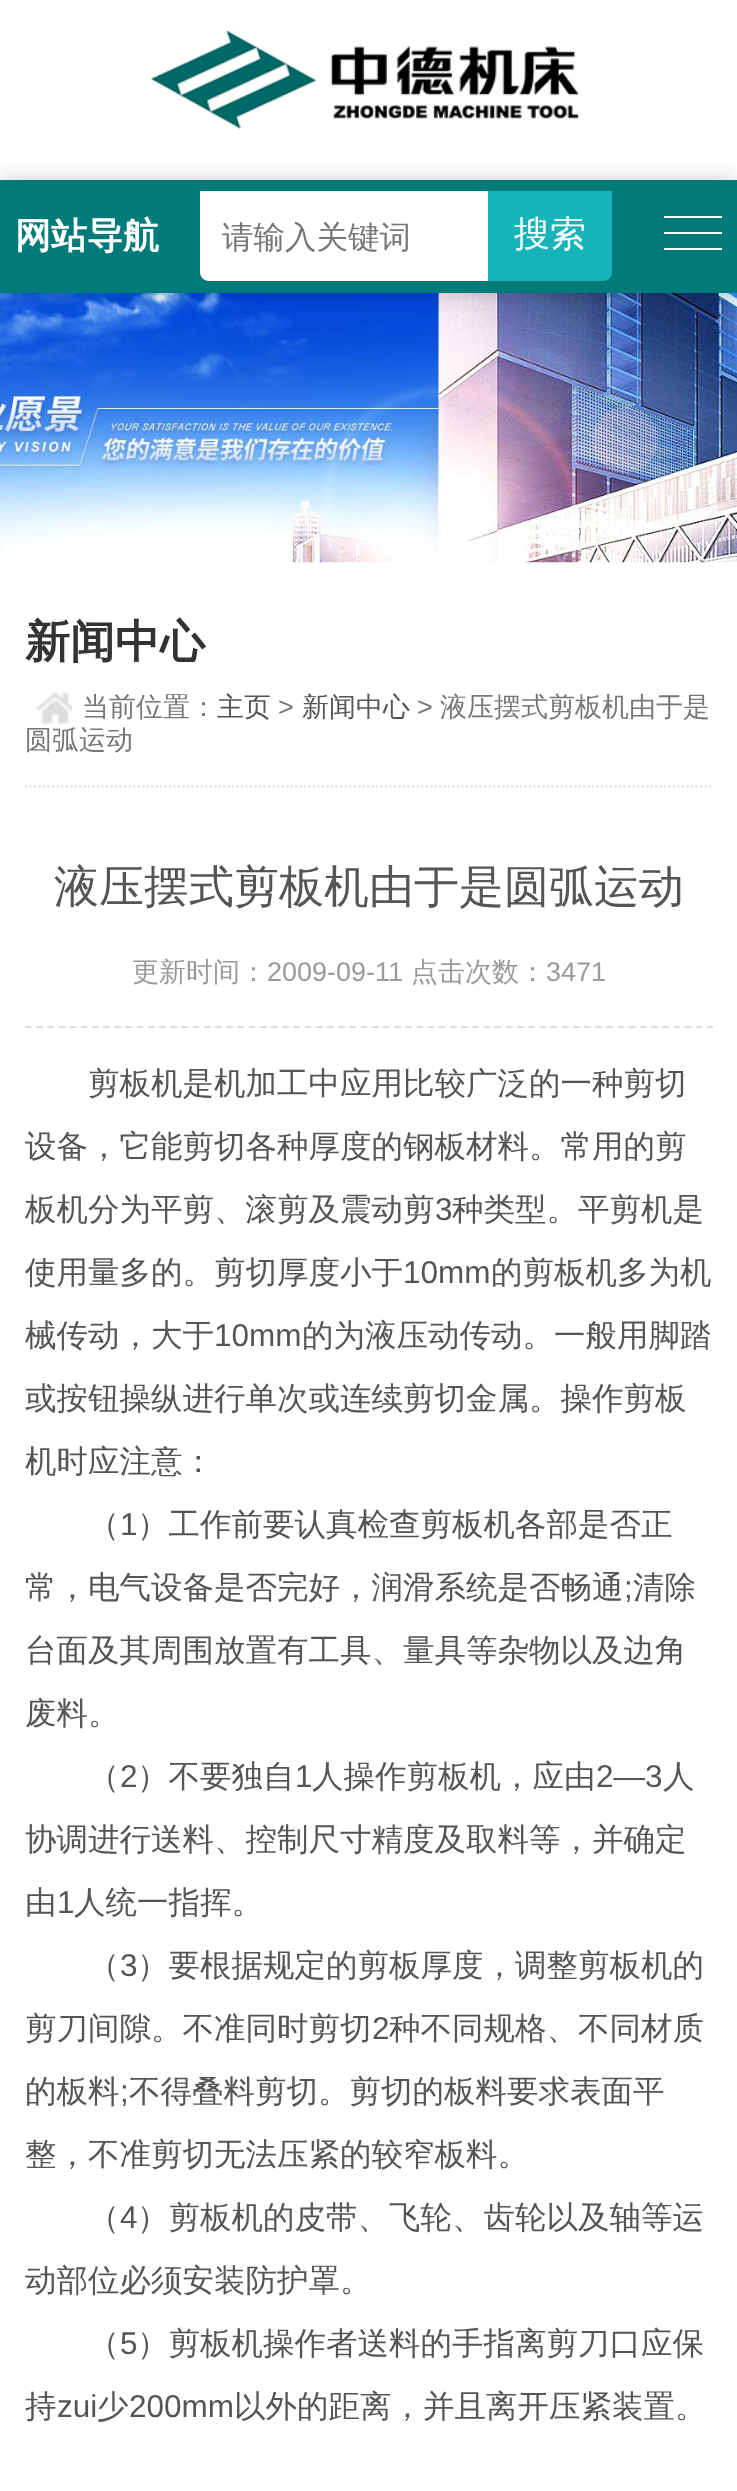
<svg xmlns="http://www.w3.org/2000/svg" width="737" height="2491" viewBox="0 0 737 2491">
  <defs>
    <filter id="blur1" x="-50%" y="-200%" width="200%" height="500%"><feGaussianBlur stdDeviation="11"/></filter>
  </defs>
  <rect width="100%" height="100%" fill="#ffffff"/>
  <image x="151" y="30" width="429" height="99" href="img1.png"/>
  <image x="0" y="293" width="737" height="270" href="img2.png"/>
  <rect x="0" y="180" width="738" height="113" fill="#000000" fill-opacity="0.2" filter="url(#blur1)"/>
  <rect x="0" y="180" width="737" height="113" fill="#007b7a"/>
  <text x="15" y="248" font-family="WenQuanYi Zen Hei" font-size="36" font-weight="bold" fill="#ffffff">网站导航</text>
  <rect x="664" y="216" width="58" height="2" fill="#ffffff"/>
  <rect x="664" y="232" width="58" height="2" fill="#ffffff"/>
  <rect x="664" y="248" width="58" height="2" fill="#ffffff"/>
  <path d="M200 191H488V281H209C204 281 200 277 200 272Z" fill="#ffffff"/>
  <text x="222" y="248" font-family="WenQuanYi Zen Hei" font-size="31.5" font-weight="500" fill="#777777">请输入关键词</text>
  <path d="M488 191H612V272C612 277 608 281 603 281H488Z" fill="#16b4b9"/>
  <text x="514" y="246" font-family="WenQuanYi Zen Hei" font-size="36" font-weight="500" fill="#ffffff">搜索</text>
  <path d="M25 786.5H713" fill="none" stroke="#dedede" stroke-width="2.2" stroke-dasharray="2.25 2.25"/>
  <text x="25" y="657" font-family="WenQuanYi Zen Hei" font-size="45" font-weight="bold" fill="#333333">新闻中心</text>
  <image x="36" y="691" width="36" height="33" href="img3.png"/>
  <text x="82" y="716" font-family="WenQuanYi Zen Hei" font-size="27" font-weight="500" fill="#777777">当前位置：</text>
  <text x="217" y="716" font-family="WenQuanYi Zen Hei" font-size="27" font-weight="500" fill="#555555">主页</text>
  <text x="278" y="716" font-family="Liberation Sans" font-size="27" fill="#777777">&gt;</text>
  <text x="302" y="716" font-family="WenQuanYi Zen Hei" font-size="27" font-weight="500" fill="#555555">新闻中心</text>
  <text x="417" y="716" font-family="Liberation Sans" font-size="27" fill="#777777">&gt;</text>
  <text x="440" y="716" font-family="WenQuanYi Zen Hei" font-size="27" font-weight="500" fill="#777777">液压摆式剪板机由于是</text>
  <text x="25" y="749" font-family="WenQuanYi Zen Hei" font-size="27" font-weight="500" fill="#777777">圆弧运动</text>
  <text x="54" y="902" font-family="WenQuanYi Zen Hei" font-size="45" font-weight="500" fill="#555555">液压摆式剪板机由于是圆弧运动</text>
  <path d="M25 1027H713" fill="none" stroke="#dedede" stroke-width="2.2" stroke-dasharray="6.75 4.43"/>
  <text x="132" y="981" font-family="WenQuanYi Zen Hei" font-size="27" font-weight="500" fill="#999999">更新时间：</text>
  <text x="267" y="981" font-family="Liberation Sans" font-size="27" fill="#999999">2009-09-11</text>
  <text x="411" y="981" font-family="WenQuanYi Zen Hei" font-size="27" font-weight="500" fill="#999999">点击次数：</text>
  <text x="546" y="981" font-family="Liberation Sans" font-size="27" fill="#999999">3471</text>
  <text x="88" y="1094" font-family="WenQuanYi Zen Hei" font-size="31.5" font-weight="500" fill="#555555">剪板机是机加工中应用比较广泛的一种剪切</text>
  <text x="25" y="1157" font-family="WenQuanYi Zen Hei" font-size="31.5" font-weight="500" fill="#555555">设备，它能剪切各种厚度的钢板材料。常用的剪</text>
  <text x="25" y="1220" font-family="WenQuanYi Zen Hei" font-size="31.5" font-weight="500" fill="#555555">板机分为平剪、滚剪及震动剪</text>
  <text x="435" y="1220" font-family="Liberation Sans" font-size="31.5" fill="#555555">3</text>
  <text x="452" y="1220" font-family="WenQuanYi Zen Hei" font-size="31.5" font-weight="500" fill="#555555">种类型。平剪机是</text>
  <text x="25" y="1283" font-family="WenQuanYi Zen Hei" font-size="31.5" font-weight="500" fill="#555555">使用量多的。剪切厚度小于</text>
  <text x="403" y="1283" font-family="Liberation Sans" font-size="31.5" fill="#555555">10mm</text>
  <text x="491" y="1283" font-family="WenQuanYi Zen Hei" font-size="31.5" font-weight="500" fill="#555555">的剪板机多为机</text>
  <text x="25" y="1346" font-family="WenQuanYi Zen Hei" font-size="31.5" font-weight="500" fill="#555555">械传动，大于</text>
  <text x="214" y="1346" font-family="Liberation Sans" font-size="31.5" fill="#555555">10mm</text>
  <text x="302" y="1346" font-family="WenQuanYi Zen Hei" font-size="31.5" font-weight="500" fill="#555555">的为液压动传动。一般用脚踏</text>
  <text x="25" y="1409" font-family="WenQuanYi Zen Hei" font-size="31.5" font-weight="500" fill="#555555">或按钮操纵进行单次或连续剪切金属。操作剪板</text>
  <text x="25" y="1472" font-family="WenQuanYi Zen Hei" font-size="31.5" font-weight="500" fill="#555555">机时应注意：</text>
  <text x="88" y="1535" font-family="WenQuanYi Zen Hei" font-size="31.5" font-weight="500" fill="#555555">（</text>
  <text x="120" y="1535" font-family="Liberation Sans" font-size="31.5" fill="#555555">1</text>
  <text x="137" y="1535" font-family="WenQuanYi Zen Hei" font-size="31.5" font-weight="500" fill="#555555">）工作前要认真检查剪板机各部是否正</text>
  <text x="25" y="1598" font-family="WenQuanYi Zen Hei" font-size="31.5" font-weight="500" fill="#555555">常，电气设备是否完好，润滑系统是否畅通</text>
  <text x="624" y="1598" font-family="Liberation Sans" font-size="31.5" fill="#555555">;</text>
  <text x="633" y="1598" font-family="WenQuanYi Zen Hei" font-size="31.5" font-weight="500" fill="#555555">清除</text>
  <text x="25" y="1661" font-family="WenQuanYi Zen Hei" font-size="31.5" font-weight="500" fill="#555555">台面及其周围放置有工具、量具等杂物以及边角</text>
  <text x="25" y="1724" font-family="WenQuanYi Zen Hei" font-size="31.5" font-weight="500" fill="#555555">废料。</text>
  <text x="88" y="1787" font-family="WenQuanYi Zen Hei" font-size="31.5" font-weight="500" fill="#555555">（</text>
  <text x="120" y="1787" font-family="Liberation Sans" font-size="31.5" fill="#555555">2</text>
  <text x="137" y="1787" font-family="WenQuanYi Zen Hei" font-size="31.5" font-weight="500" fill="#555555">）不要独自</text>
  <text x="295" y="1787" font-family="Liberation Sans" font-size="31.5" fill="#555555">1</text>
  <text x="312" y="1787" font-family="WenQuanYi Zen Hei" font-size="31.5" font-weight="500" fill="#555555">人操作剪板机，应由</text>
  <text x="596" y="1787" font-family="Liberation Sans" font-size="31.5" fill="#555555">2—3</text>
  <text x="663" y="1787" font-family="WenQuanYi Zen Hei" font-size="31.5" font-weight="500" fill="#555555">人</text>
  <text x="25" y="1850" font-family="WenQuanYi Zen Hei" font-size="31.5" font-weight="500" fill="#555555">协调进行送料、控制尺寸精度及取料等，并确定</text>
  <text x="25" y="1913" font-family="WenQuanYi Zen Hei" font-size="31.5" font-weight="500" fill="#555555">由</text>
  <text x="57" y="1913" font-family="Liberation Sans" font-size="31.5" fill="#555555">1</text>
  <text x="74" y="1913" font-family="WenQuanYi Zen Hei" font-size="31.5" font-weight="500" fill="#555555">人统一指挥。</text>
  <text x="88" y="1976" font-family="WenQuanYi Zen Hei" font-size="31.5" font-weight="500" fill="#555555">（</text>
  <text x="120" y="1976" font-family="Liberation Sans" font-size="31.5" fill="#555555">3</text>
  <text x="137" y="1976" font-family="WenQuanYi Zen Hei" font-size="31.5" font-weight="500" fill="#555555">）要根据规定的剪板厚度，调整剪板机的</text>
  <text x="25" y="2039" font-family="WenQuanYi Zen Hei" font-size="31.5" font-weight="500" fill="#555555">剪刀间隙。不准同时剪切</text>
  <text x="372" y="2039" font-family="Liberation Sans" font-size="31.5" fill="#555555">2</text>
  <text x="389" y="2039" font-family="WenQuanYi Zen Hei" font-size="31.5" font-weight="500" fill="#555555">种不同规格、不同材质</text>
  <text x="25" y="2102" font-family="WenQuanYi Zen Hei" font-size="31.5" font-weight="500" fill="#555555">的板料</text>
  <text x="120" y="2102" font-family="Liberation Sans" font-size="31.5" fill="#555555">;</text>
  <text x="129" y="2102" font-family="WenQuanYi Zen Hei" font-size="31.5" font-weight="500" fill="#555555">不得叠料剪切。剪切的板料要求表面平</text>
  <text x="25" y="2165" font-family="WenQuanYi Zen Hei" font-size="31.5" font-weight="500" fill="#555555">整，不准剪切无法压紧的较窄板料。</text>
  <text x="88" y="2228" font-family="WenQuanYi Zen Hei" font-size="31.5" font-weight="500" fill="#555555">（</text>
  <text x="120" y="2228" font-family="Liberation Sans" font-size="31.5" fill="#555555">4</text>
  <text x="137" y="2228" font-family="WenQuanYi Zen Hei" font-size="31.5" font-weight="500" fill="#555555">）剪板机的皮带、飞轮、齿轮以及轴等运</text>
  <text x="25" y="2291" font-family="WenQuanYi Zen Hei" font-size="31.5" font-weight="500" fill="#555555">动部位必须安装防护罩。</text>
  <text x="88" y="2354" font-family="WenQuanYi Zen Hei" font-size="31.5" font-weight="500" fill="#555555">（</text>
  <text x="120" y="2354" font-family="Liberation Sans" font-size="31.5" fill="#555555">5</text>
  <text x="137" y="2354" font-family="WenQuanYi Zen Hei" font-size="31.5" font-weight="500" fill="#555555">）剪板机操作者送料的手指离剪刀口应保</text>
  <text x="25" y="2417" font-family="WenQuanYi Zen Hei" font-size="31.5" font-weight="500" fill="#555555">持</text>
  <text x="57" y="2417" font-family="Liberation Sans" font-size="31.5" fill="#555555">zui</text>
  <text x="97" y="2417" font-family="WenQuanYi Zen Hei" font-size="31.5" font-weight="500" fill="#555555">少</text>
  <text x="129" y="2417" font-family="Liberation Sans" font-size="31.5" fill="#555555">200mm</text>
  <text x="234" y="2417" font-family="WenQuanYi Zen Hei" font-size="31.5" font-weight="500" fill="#555555">以外的距离，并且离开压紧装置。</text>
</svg>
